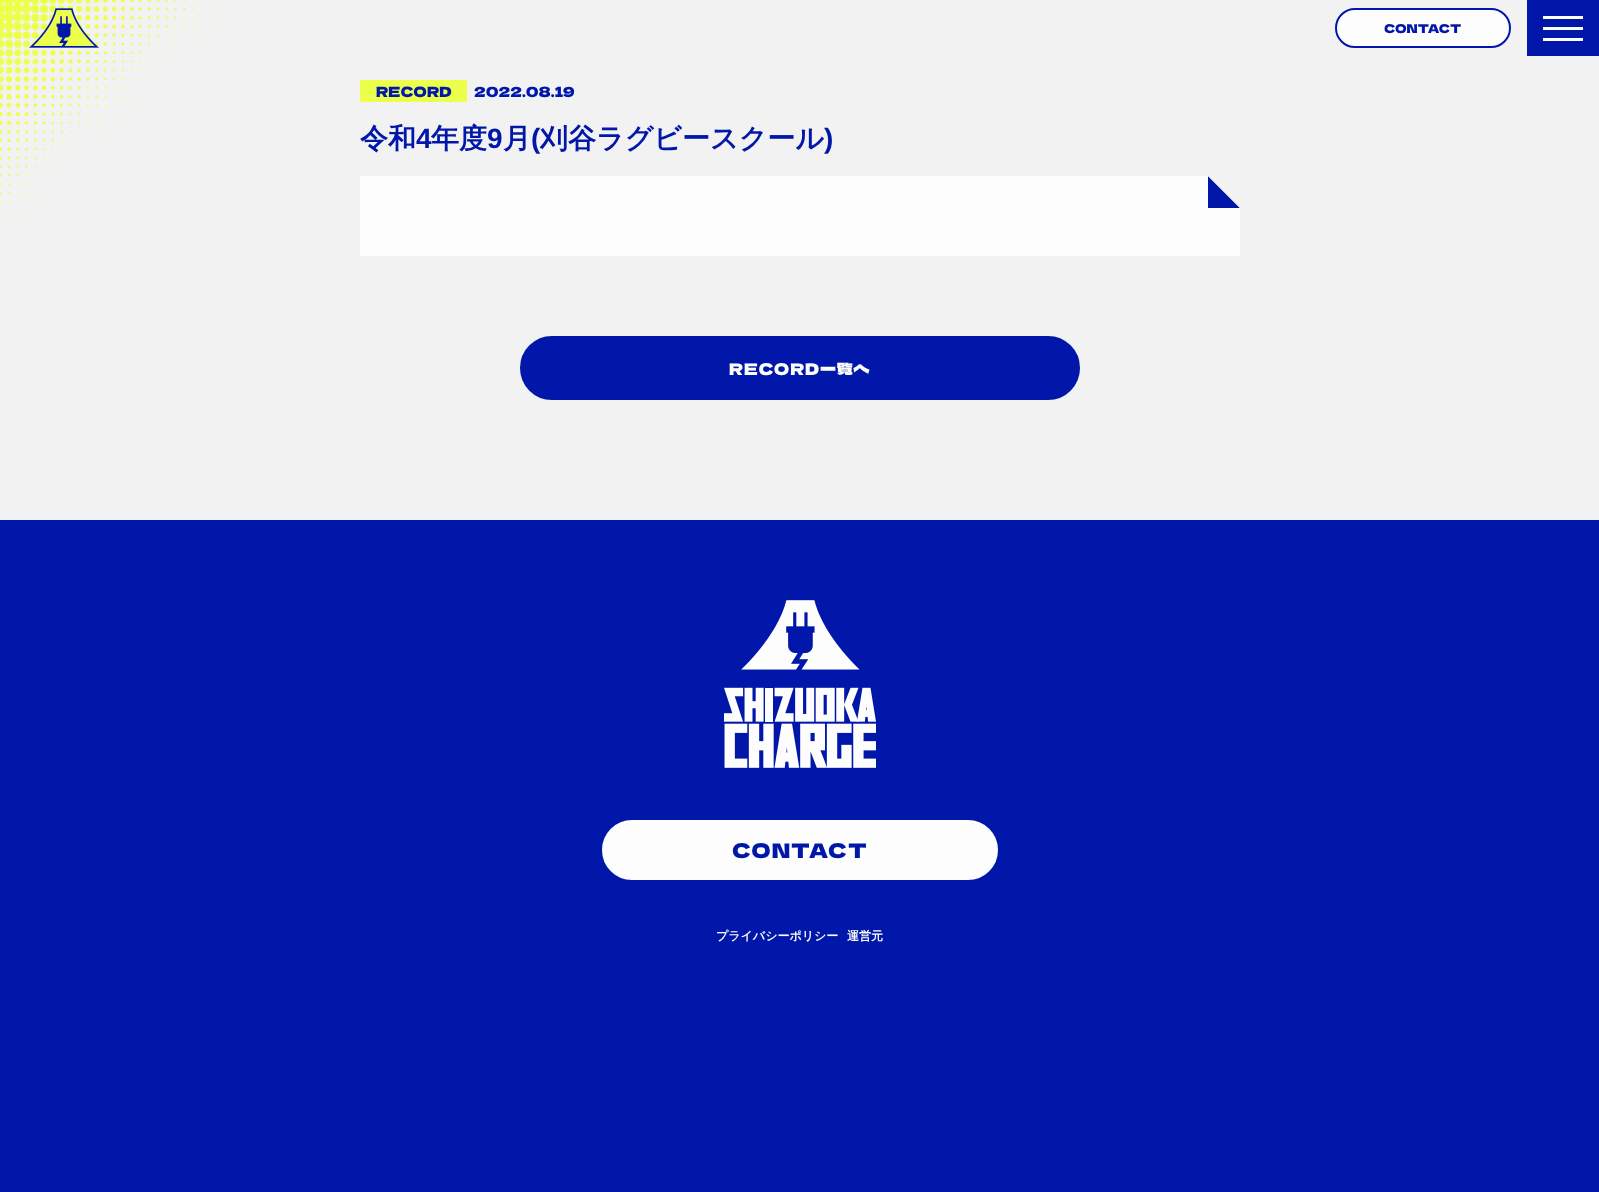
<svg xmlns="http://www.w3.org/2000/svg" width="1599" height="1192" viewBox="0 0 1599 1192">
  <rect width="100%" height="100%" fill="#0117a9"/>
  <rect x="0" y="0" width="1599" height="520" fill="#f2f2f2"/>
  <image x="0" y="0" width="272" height="272" href="img2.png"/>
  <image x="29" y="8" width="70" height="40" href="img1.png"/>
  <rect x="1336" y="9" width="174" height="38" rx="19" fill="#fdfdfd" stroke="#0117a9" stroke-width="2"/>
  <text x="1384" y="33" font-family="Dela Gothic One" font-size="12" fill="#0117a9">CONTACT</text>
  <rect x="1527" y="0" width="72" height="56" fill="#0117a9"/>
  <rect x="1543" y="16" width="40" height="3" fill="#fdfdfd"/>
  <rect x="1543" y="27" width="40" height="3" fill="#fdfdfd"/>
  <rect x="1543" y="38" width="40" height="3" fill="#fdfdfd"/>
  <rect x="360" y="80" width="107" height="22" fill="#ebff4b"/>
  <text x="376" y="97" font-family="Dela Gothic One" font-size="14" fill="#0117a9">RECORD</text>
  <text x="474" y="97" font-family="Dela Gothic One" font-size="14" fill="#0117a9">2022.08.19</text>
  <text x="360" y="148" font-family="WenQuanYi Zen Hei" font-size="28" font-weight="bold" fill="#0117a9">令和</text>
  <text x="416" y="148" font-family="Liberation Sans" font-size="28" font-weight="bold" fill="#0117a9">4</text>
  <text x="431" y="148" font-family="WenQuanYi Zen Hei" font-size="28" font-weight="bold" fill="#0117a9">年度</text>
  <text x="487" y="148" font-family="Liberation Sans" font-size="28" font-weight="bold" fill="#0117a9">9</text>
  <text x="503" y="148" font-family="WenQuanYi Zen Hei" font-size="28" font-weight="bold" fill="#0117a9">月</text>
  <text x="531" y="148" font-family="Liberation Sans" font-size="28" font-weight="bold" fill="#0117a9">(</text>
  <text x="540" y="148" font-family="WenQuanYi Zen Hei" font-size="28" font-weight="bold" fill="#0117a9">刈谷ラグビースクール</text>
  <text x="824" y="148" font-family="Liberation Sans" font-size="28" font-weight="bold" fill="#0117a9">)</text>
  <rect x="360" y="176" width="880" height="80" fill="#fdfdfd"/>
  <path d="M1208 208V176L1240 208Z" fill="#0117a9"/>
  <path d="M1240 176V208L1208 176Z" fill="#f2f2f2"/>
  <rect x="521" y="337" width="558" height="62" rx="31" fill="#0117a9" stroke="#0117a9" stroke-width="2"/>
  <text x="729" y="375" font-family="Dela Gothic One" font-size="16" letter-spacing="0.75" fill="#fdfdfd">RECORD一覧へ</text>
  <image x="724" y="600" width="152" height="168" href="img3.png"/>
  <rect x="601" y="819" width="398" height="62" rx="31" fill="#fdfdfd" stroke="#0117a9" stroke-width="2"/>
  <text x="732" y="858" font-family="Dela Gothic One" font-size="20" letter-spacing="1" fill="#0117a9">CONTACT</text>
  <text x="716" y="940" font-family="WenQuanYi Zen Hei" font-size="12" font-weight="bold" fill="#fdfdfd">プライバシーポリシー</text>
  <text x="847" y="940" font-family="WenQuanYi Zen Hei" font-size="12" font-weight="bold" fill="#fdfdfd">運営元</text>
</svg>
